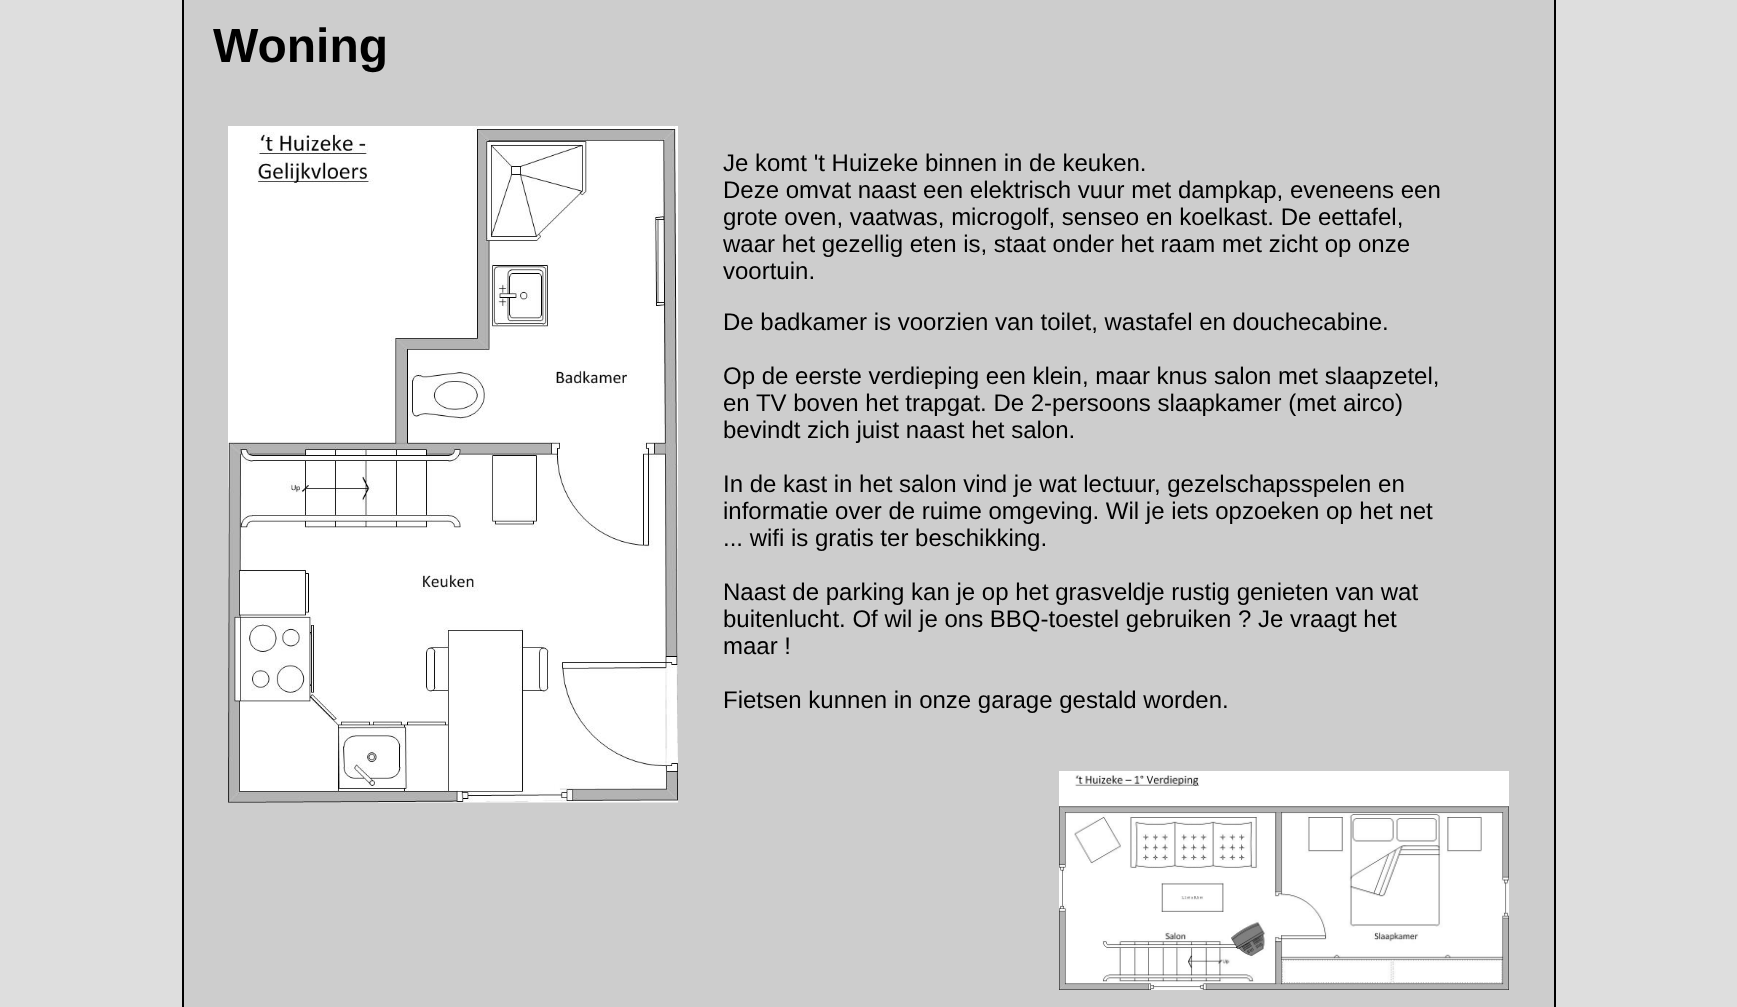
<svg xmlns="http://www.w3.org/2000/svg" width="1737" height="1007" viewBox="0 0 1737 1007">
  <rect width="100%" height="100%" fill="#dedede"/>
  <rect x="183" y="-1" width="1372" height="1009" fill="#cdcdcd" stroke="#000000" stroke-width="2"/>
  <text x="213" y="62" font-family="Liberation Sans" font-size="48" font-weight="bold" fill="#000000">Woning</text>
  <image x="228" y="126" width="450" height="677" href="img1.png"/>
  <text x="723" y="171" font-family="Liberation Sans" font-size="24" fill="#000000">Je komt 't Huizeke binnen in de keuken.</text>
  <text x="723" y="198" font-family="Liberation Sans" font-size="24" fill="#000000">Deze omvat naast een elektrisch vuur met dampkap, eveneens een</text>
  <text x="723" y="225" font-family="Liberation Sans" font-size="24" fill="#000000">grote oven, vaatwas, microgolf, senseo en koelkast. De eettafel,</text>
  <text x="723" y="252" font-family="Liberation Sans" font-size="24" fill="#000000">waar het gezellig eten is, staat onder het raam met zicht op onze</text>
  <text x="723" y="279" font-family="Liberation Sans" font-size="24" fill="#000000">voortuin.</text>
  <text x="723" y="330" font-family="Liberation Sans" font-size="24" fill="#000000">De badkamer is voorzien van toilet, wastafel en douchecabine.</text>
  <text x="723" y="384" font-family="Liberation Sans" font-size="24" fill="#000000">Op de eerste verdieping een klein, maar knus salon met slaapzetel,</text>
  <text x="723" y="411" font-family="Liberation Sans" font-size="24" fill="#000000">en TV boven het trapgat. De 2-persoons slaapkamer (met airco)</text>
  <text x="723" y="438" font-family="Liberation Sans" font-size="24" fill="#000000">bevindt zich juist naast het salon.</text>
  <text x="723" y="492" font-family="Liberation Sans" font-size="24" fill="#000000">In de kast in het salon vind je wat lectuur, gezelschapsspelen en</text>
  <text x="723" y="519" font-family="Liberation Sans" font-size="24" fill="#000000">informatie over de ruime omgeving. Wil je iets opzoeken op het net</text>
  <text x="723" y="546" font-family="Liberation Sans" font-size="24" fill="#000000">... wifi is gratis ter beschikking.</text>
  <text x="723" y="600" font-family="Liberation Sans" font-size="24" fill="#000000">Naast de parking kan je op het grasveldje rustig genieten van wat</text>
  <text x="723" y="627" font-family="Liberation Sans" font-size="24" fill="#000000">buitenlucht. Of wil je ons BBQ-toestel gebruiken ? Je vraagt het</text>
  <text x="723" y="654" font-family="Liberation Sans" font-size="24" fill="#000000">maar !</text>
  <text x="723" y="708" font-family="Liberation Sans" font-size="24" fill="#000000">Fietsen kunnen in onze garage gestald worden.</text>
  <image x="1059" y="771" width="450" height="219" href="img2.png"/>
</svg>
